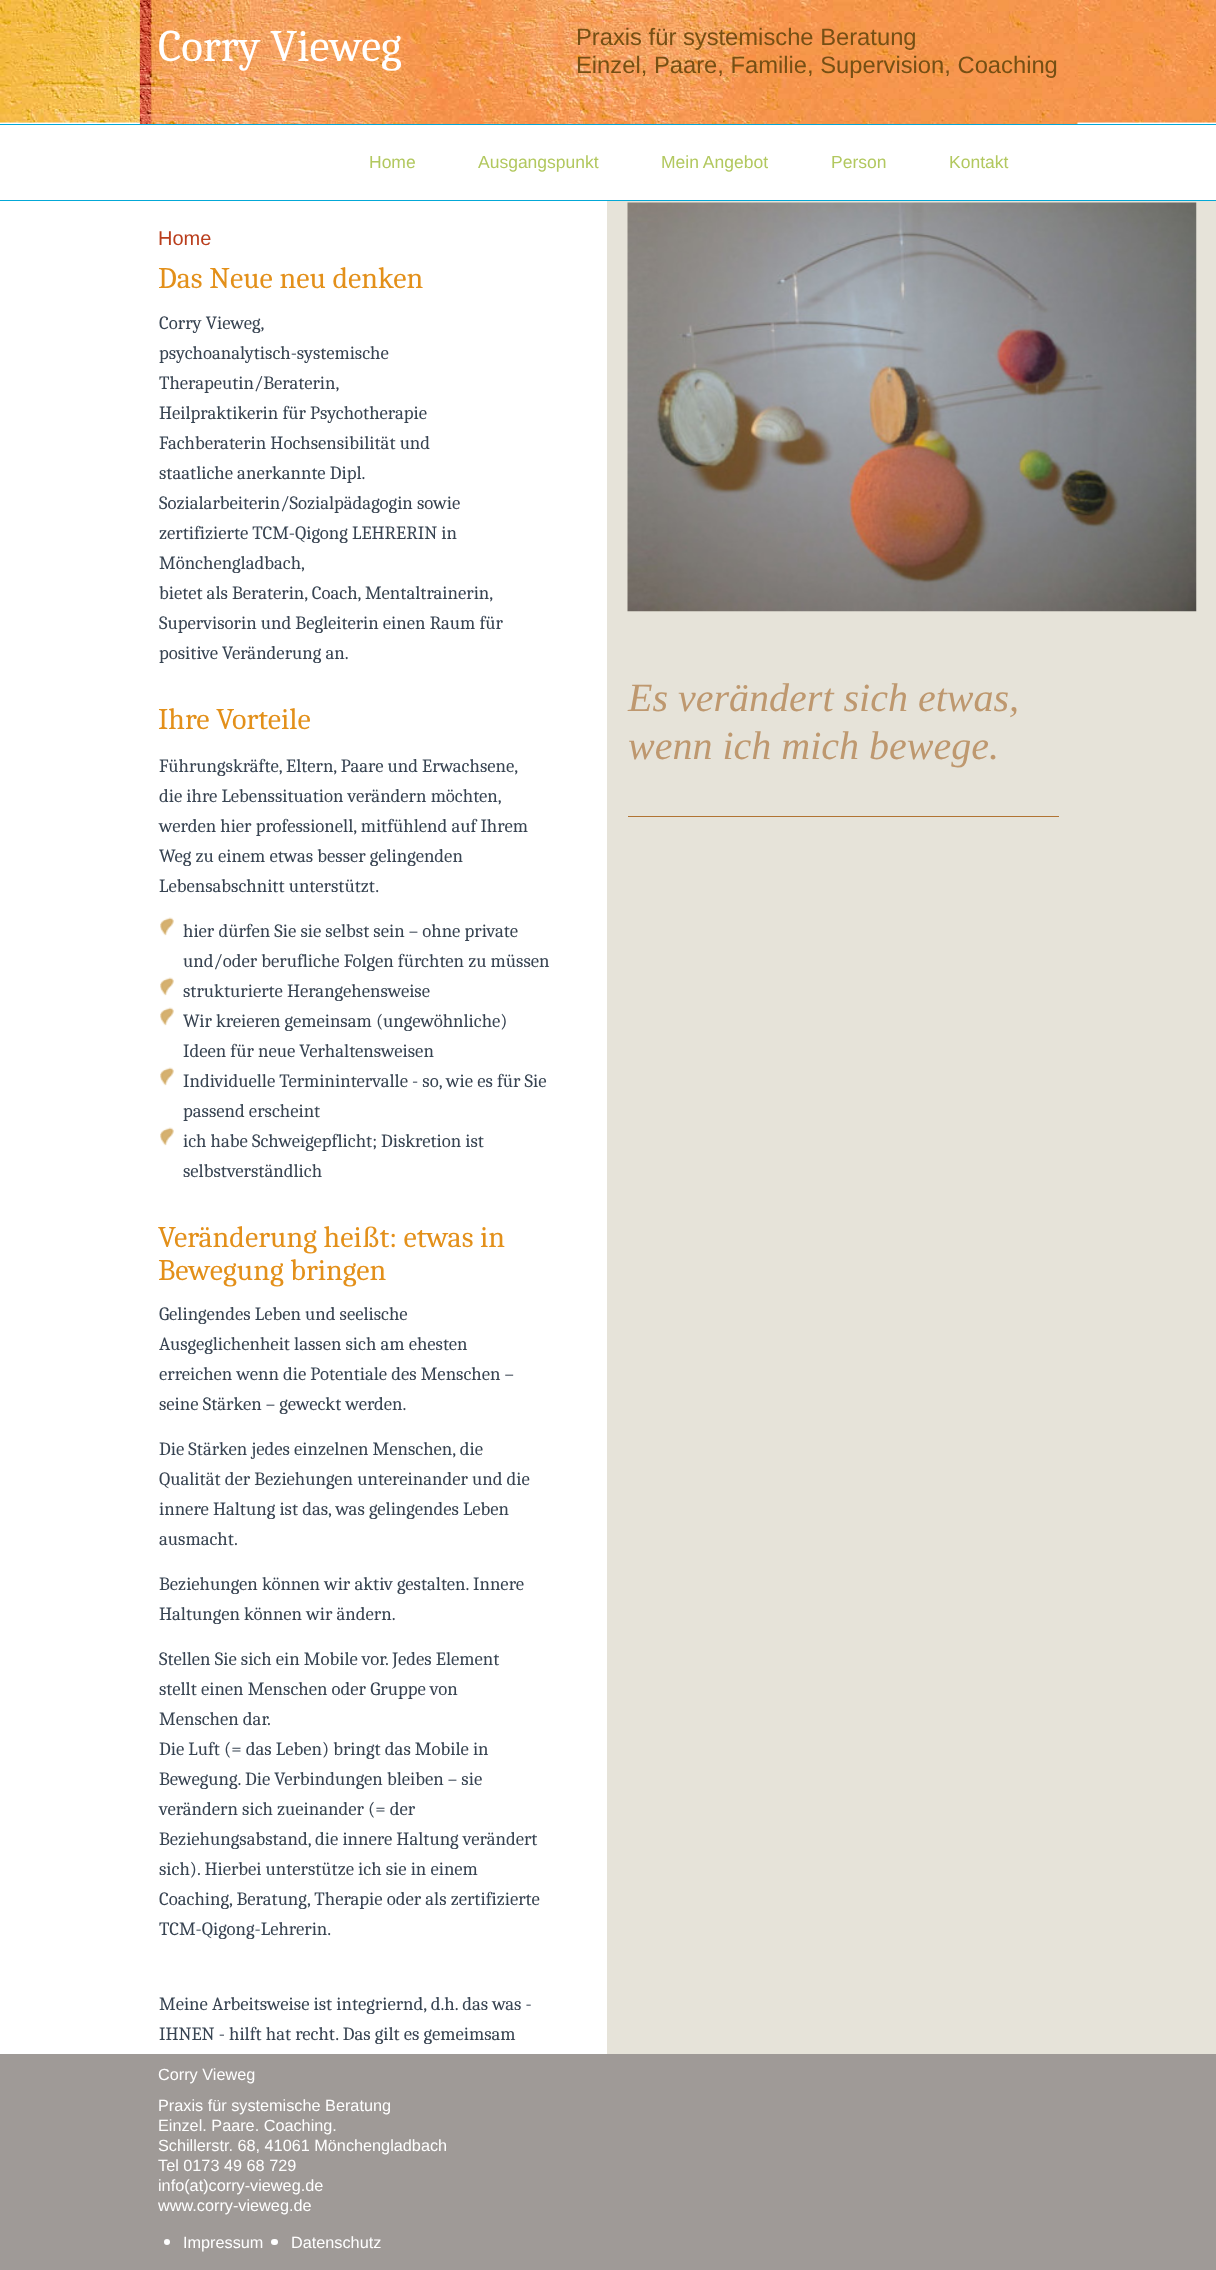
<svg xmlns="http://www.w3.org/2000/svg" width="1216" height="2270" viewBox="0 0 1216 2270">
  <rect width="100%" height="100%" fill="#ffffff"/>
  <rect x="607" y="201" width="609" height="1853" fill="#e6e3d9"/>
  <image x="0" y="0" width="1216" height="123" href="img1.png"/>
  <image x="139" y="0" width="939" height="124" href="img2.png"/>
  <text x="158" y="61" font-family="Caladea" font-size="45" fill="#ffffff">Corry Vieweg</text>
  <text x="576" y="45" font-family="Liberation Sans" font-size="23.75" fill="#754f14">Praxis für systemische Beratung</text>
  <text x="576" y="73" font-family="Liberation Sans" font-size="23.75" fill="#754f14">Einzel, Paare, Familie, Supervision, Coaching</text>
  <rect x="0" y="124" width="1216" height="1" fill="#03a8d7"/>
  <rect x="0" y="200" width="1216" height="1" fill="#03a8d7"/>
  <text x="369" y="168" font-family="Liberation Sans" font-size="17.5" fill="#b2c85f">Home</text>
  <text x="478" y="168" font-family="Liberation Sans" font-size="17.5" fill="#b2c85f">Ausgangspunkt</text>
  <text x="661" y="168" font-family="Liberation Sans" font-size="17.5" fill="#b2c85f">Mein Angebot</text>
  <text x="831" y="168" font-family="Liberation Sans" font-size="17.5" fill="#b2c85f">Person</text>
  <text x="949" y="168" font-family="Liberation Sans" font-size="17.5" fill="#b2c85f">Kontakt</text>
  <text x="158" y="245" font-family="Liberation Sans" font-size="20" fill="#ba3e1d">Home</text>
  <text x="158" y="288" font-family="Caladea" font-size="30" fill="#e3901a">Das Neue neu denken</text>
  <text x="159" y="329" font-family="Caladea" font-size="18.75" fill="#384452">Corry Vieweg,</text>
  <text x="159" y="359" font-family="Caladea" font-size="18.75" fill="#384452">psychoanalytisch-systemische</text>
  <text x="159" y="389" font-family="Caladea" font-size="18.75" fill="#384452">Therapeutin/Beraterin,</text>
  <text x="159" y="419" font-family="Caladea" font-size="18.75" fill="#384452">Heilpraktikerin für Psychotherapie</text>
  <text x="159" y="449" font-family="Caladea" font-size="18.75" fill="#384452">Fachberaterin Hochsensibilität und</text>
  <text x="159" y="479" font-family="Caladea" font-size="18.75" fill="#384452">staatliche anerkannte Dipl.</text>
  <text x="159" y="509" font-family="Caladea" font-size="18.75" fill="#384452">Sozialarbeiterin/Sozialpädagogin sowie</text>
  <text x="159" y="539" font-family="Caladea" font-size="18.75" fill="#384452">zertifizierte TCM-Qigong LEHRERIN in</text>
  <text x="159" y="569" font-family="Caladea" font-size="18.75" fill="#384452">Mönchengladbach,</text>
  <text x="159" y="599" font-family="Caladea" font-size="18.75" fill="#384452">bietet als Beraterin, Coach, Mentaltrainerin,</text>
  <text x="159" y="629" font-family="Caladea" font-size="18.75" fill="#384452">Supervisorin und Begleiterin einen Raum für</text>
  <text x="159" y="659" font-family="Caladea" font-size="18.75" fill="#384452">positive Veränderung an.</text>
  <text x="158" y="729" font-family="Caladea" font-size="30" fill="#e3901a">Ihre Vorteile</text>
  <text x="159" y="772" font-family="Caladea" font-size="18.75" fill="#384452">Führungskräfte, Eltern, Paare und Erwachsene,</text>
  <text x="159" y="802" font-family="Caladea" font-size="18.75" fill="#384452">die ihre Lebenssituation verändern möchten,</text>
  <text x="159" y="832" font-family="Caladea" font-size="18.75" fill="#384452">werden hier professionell, mitfühlend auf Ihrem</text>
  <text x="159" y="862" font-family="Caladea" font-size="18.75" fill="#384452">Weg zu einem etwas besser gelingenden</text>
  <text x="159" y="892" font-family="Caladea" font-size="18.75" fill="#384452">Lebensabschnitt unterstützt.</text>
  <image x="160" y="917" width="14" height="19" href="img3.png"/>
  <text x="183" y="937" font-family="Caladea" font-size="18.75" fill="#384452">hier dürfen Sie sie selbst sein – ohne private</text>
  <text x="183" y="967" font-family="Caladea" font-size="18.75" fill="#384452">und/oder berufliche Folgen fürchten zu müssen</text>
  <image x="160" y="977" width="14" height="19" href="img3.png"/>
  <text x="183" y="997" font-family="Caladea" font-size="18.75" fill="#384452">strukturierte Herangehensweise</text>
  <image x="160" y="1007" width="14" height="19" href="img3.png"/>
  <text x="183" y="1027" font-family="Caladea" font-size="18.75" fill="#384452">Wir kreieren gemeinsam (ungewöhnliche)</text>
  <text x="183" y="1057" font-family="Caladea" font-size="18.75" fill="#384452">Ideen für neue Verhaltensweisen</text>
  <image x="160" y="1067" width="14" height="19" href="img3.png"/>
  <text x="183" y="1087" font-family="Caladea" font-size="18.75" fill="#384452">Individuelle Terminintervalle - so, wie es für Sie</text>
  <text x="183" y="1117" font-family="Caladea" font-size="18.75" fill="#384452">passend erscheint</text>
  <image x="160" y="1127" width="14" height="19" href="img3.png"/>
  <text x="183" y="1147" font-family="Caladea" font-size="18.75" fill="#384452">ich habe Schweigepflicht; Diskretion ist</text>
  <text x="183" y="1177" font-family="Caladea" font-size="18.75" fill="#384452">selbstverständlich</text>
  <text x="158" y="1247" font-family="Caladea" font-size="30" fill="#e3901a">Veränderung heißt: etwas in</text>
  <text x="158" y="1280" font-family="Caladea" font-size="30" fill="#e3901a">Bewegung bringen</text>
  <text x="159" y="1320" font-family="Caladea" font-size="18.75" fill="#384452">Gelingendes Leben und seelische</text>
  <text x="159" y="1350" font-family="Caladea" font-size="18.75" fill="#384452">Ausgeglichenheit lassen sich am ehesten</text>
  <text x="159" y="1380" font-family="Caladea" font-size="18.75" fill="#384452">erreichen wenn die Potentiale des Menschen –</text>
  <text x="159" y="1410" font-family="Caladea" font-size="18.75" fill="#384452">seine Stärken – geweckt werden.</text>
  <text x="159" y="1455" font-family="Caladea" font-size="18.75" fill="#384452">Die Stärken jedes einzelnen Menschen, die</text>
  <text x="159" y="1485" font-family="Caladea" font-size="18.75" fill="#384452">Qualität der Beziehungen untereinander und die</text>
  <text x="159" y="1515" font-family="Caladea" font-size="18.75" fill="#384452">innere Haltung ist das, was gelingendes Leben</text>
  <text x="159" y="1545" font-family="Caladea" font-size="18.75" fill="#384452">ausmacht.</text>
  <text x="159" y="1590" font-family="Caladea" font-size="18.75" fill="#384452">Beziehungen können wir aktiv gestalten. Innere</text>
  <text x="159" y="1620" font-family="Caladea" font-size="18.75" fill="#384452">Haltungen können wir ändern.</text>
  <text x="159" y="1665" font-family="Caladea" font-size="18.75" fill="#384452">Stellen Sie sich ein Mobile vor. Jedes Element</text>
  <text x="159" y="1695" font-family="Caladea" font-size="18.75" fill="#384452">stellt einen Menschen oder Gruppe von</text>
  <text x="159" y="1725" font-family="Caladea" font-size="18.75" fill="#384452">Menschen dar.</text>
  <text x="159" y="1755" font-family="Caladea" font-size="18.75" fill="#384452">Die Luft (= das Leben) bringt das Mobile in</text>
  <text x="159" y="1785" font-family="Caladea" font-size="18.75" fill="#384452">Bewegung. Die Verbindungen bleiben – sie</text>
  <text x="159" y="1815" font-family="Caladea" font-size="18.75" fill="#384452">verändern sich zueinander (= der</text>
  <text x="159" y="1845" font-family="Caladea" font-size="18.75" fill="#384452">Beziehungsabstand, die innere Haltung verändert</text>
  <text x="159" y="1875" font-family="Caladea" font-size="18.75" fill="#384452">sich). Hierbei unterstütze ich sie in einem</text>
  <text x="159" y="1905" font-family="Caladea" font-size="18.75" fill="#384452">Coaching, Beratung, Therapie oder als zertifizierte</text>
  <text x="159" y="1935" font-family="Caladea" font-size="18.75" fill="#384452">TCM-Qigong-Lehrerin.</text>
  <text x="159" y="2010" font-family="Caladea" font-size="18.75" fill="#384452">Meine Arbeitsweise ist integriernd, d.h. das was -</text>
  <text x="159" y="2040" font-family="Caladea" font-size="18.75" fill="#384452">IHNEN - hilft hat recht. Das gilt es gemeimsam</text>
  <image x="627" y="202" width="570" height="410" href="img4.png"/>
  <rect x="628" y="816" width="431" height="1" fill="#b17433"/>
  <text x="628" y="711" font-family="Liberation Serif" font-size="40" font-style="italic" fill="#be986f">Es verändert sich etwas,</text>
  <text x="628" y="759" font-family="Liberation Serif" font-size="40" font-style="italic" fill="#be986f">wenn ich mich bewege.</text>
  <rect x="0" y="2054" width="1216" height="216" fill="#9f9a97"/>
  <text x="158" y="2080" font-family="Liberation Sans" font-size="16.25" fill="#ffffff">Corry Vieweg</text>
  <text x="158" y="2111" font-family="Liberation Sans" font-size="16.25" fill="#ffffff">Praxis für systemische Beratung</text>
  <text x="158" y="2131" font-family="Liberation Sans" font-size="16.25" fill="#ffffff">Einzel. Paare. Coaching.</text>
  <text x="158" y="2151" font-family="Liberation Sans" font-size="16.25" fill="#ffffff">Schillerstr. 68, 41061 Mönchengladbach</text>
  <text x="158" y="2171" font-family="Liberation Sans" font-size="16.25" fill="#ffffff">Tel 0173 49 68 729</text>
  <text x="158" y="2191" font-family="Liberation Sans" font-size="16.25" fill="#ffffff">info(at)corry-vieweg.de</text>
  <text x="158" y="2211" font-family="Liberation Sans" font-size="16.25" fill="#ffffff">www.corry-vieweg.de</text>
  <circle cx="167" cy="2242" r="3" fill="#ffffff"/>
  <text x="183" y="2248" font-family="Liberation Sans" font-size="16.25" fill="#ffffff">Impressum</text>
  <rect x="271" y="2239" width="7" height="6" rx="3" fill="#ffffff"/>
  <text x="291" y="2248" font-family="Liberation Sans" font-size="16.25" fill="#ffffff">Datenschutz</text>
</svg>
